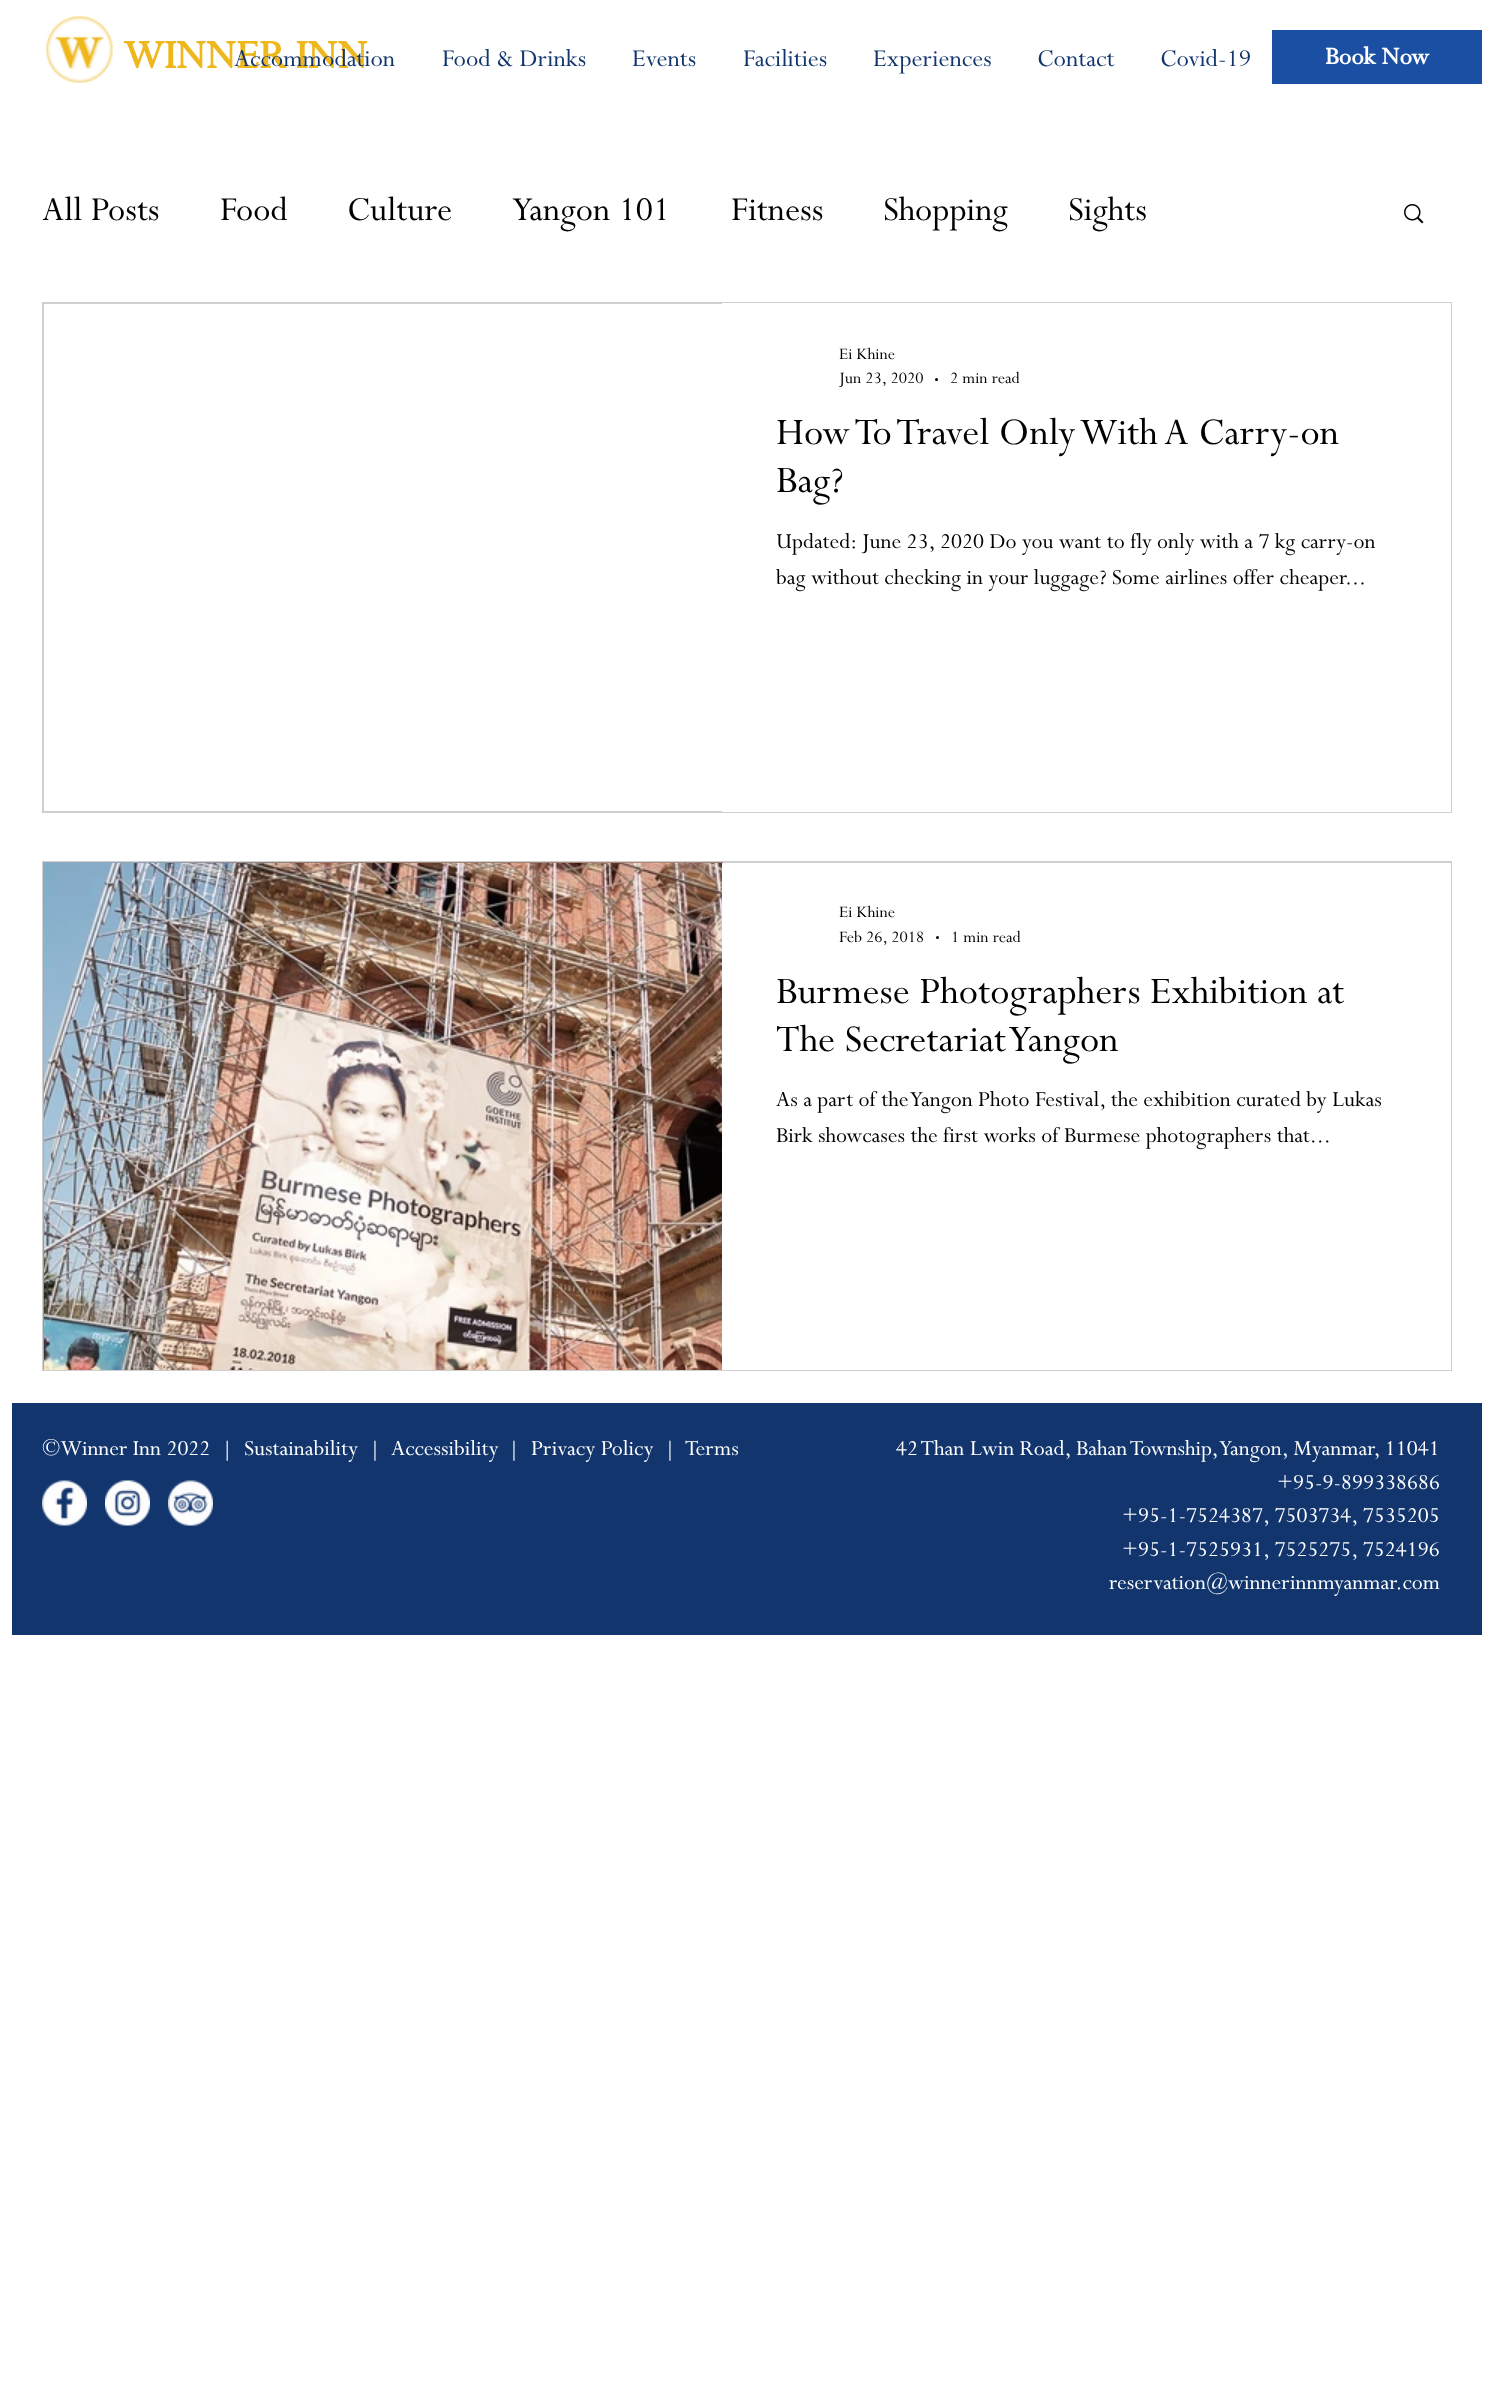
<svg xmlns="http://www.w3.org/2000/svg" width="1493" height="2394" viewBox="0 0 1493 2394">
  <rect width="100%" height="100%" fill="#ffffff"/>
  <image x="45" y="16" width="68" height="67" href="img1.png"/>
  <text x="123" y="68" font-family="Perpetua" font-size="45" font-weight="bold" fill="#eeb71c">WINNER INN</text>
  <text x="234" y="66" font-family="Perpetua" font-size="27" fill="#12356d">Accommodation</text>
  <text x="442" y="66" font-family="Perpetua" font-size="27" fill="#12356d">Food &amp; Drinks</text>
  <text x="632" y="66" font-family="Perpetua" font-size="27" fill="#12356d">Events</text>
  <text x="743" y="66" font-family="Perpetua" font-size="27" fill="#12356d">Facilities</text>
  <text x="873" y="66" font-family="Perpetua" font-size="27" fill="#12356d">Experiences</text>
  <text x="1037" y="66" font-family="Perpetua" font-size="27" fill="#12356d">Contact</text>
  <text x="1160" y="66" font-family="Perpetua" font-size="27" fill="#12356d">Covid-19</text>
  <rect x="1272" y="30" width="210" height="54" fill="#1b4fa4"/>
  <text x="1325" y="64" font-family="Perpetua" font-size="27" font-weight="bold" fill="#ffffff">Book Now</text>
  <text x="42" y="220" font-family="Perpetua" font-size="37.5" fill="#000000">All Posts</text>
  <text x="220" y="220" font-family="Perpetua" font-size="37.5" fill="#000000">Food</text>
  <text x="347" y="220" font-family="Perpetua" font-size="37.5" fill="#000000">Culture</text>
  <text x="512" y="220" font-family="Perpetua" font-size="37.5" fill="#000000">Yangon 101</text>
  <text x="731" y="220" font-family="Perpetua" font-size="37.5" fill="#000000">Fitness</text>
  <text x="883" y="220" font-family="Perpetua" font-size="37.5" fill="#000000">Shopping</text>
  <text x="1068" y="220" font-family="Perpetua" font-size="37.5" fill="#000000">Sights</text>
  <image x="1404" y="204" width="20" height="20" href="img2.png"/>
  <rect x="43" y="303" width="1408" height="509" fill="none" stroke="#cfcfcf" stroke-width="2"/>
  <rect x="722" y="303" width="729" height="509" fill="#ffffff"/>
  <text x="839" y="359" font-family="Perpetua" font-size="18" fill="#000000">Ei Khine</text>
  <text x="839" y="383" font-family="Perpetua" font-size="18" fill="#000000">Jun 23, 2020</text>
  <circle cx="936.5" cy="379.5" r="1.5" fill="#000000"/>
  <text x="950" y="383" font-family="Perpetua" font-size="18" fill="#000000">2 min read</text>
  <text x="776" y="444" font-family="Perpetua" font-size="42" fill="#000000">How To Travel Only With A Carry-on</text>
  <text x="776" y="492" font-family="Perpetua" font-size="42" fill="#000000">Bag?</text>
  <text x="776" y="548" font-family="Perpetua" font-size="24" fill="#000000">Updated: June 23, 2020 Do you want to fly only with a 7 kg carry-on</text>
  <text x="776" y="584" font-family="Perpetua" font-size="24" fill="#000000">bag without checking in your luggage? Some airlines offer cheaper...</text>
  <rect x="43" y="862" width="1408" height="508" fill="none" stroke="#cfcfcf" stroke-width="2"/>
  <image x="43" y="862" width="680" height="508" href="img3.png"/>
  <image x="44" y="863" width="678" height="507" href="img4.png"/>
  <rect x="722" y="863" width="729" height="507" fill="#ffffff"/>
  <text x="839" y="917" font-family="Perpetua" font-size="18" fill="#000000">Ei Khine</text>
  <text x="839" y="942" font-family="Perpetua" font-size="18" fill="#000000">Feb 26, 2018</text>
  <circle cx="937.5" cy="937.5" r="1.5" fill="#000000"/>
  <text x="951" y="942" font-family="Perpetua" font-size="18" fill="#000000">1 min read</text>
  <text x="776" y="1003" font-family="Perpetua" font-size="42" fill="#000000">Burmese Photographers Exhibition at</text>
  <text x="776" y="1051" font-family="Perpetua" font-size="42" fill="#000000">The Secretariat Yangon</text>
  <text x="776" y="1106" font-family="Perpetua" font-size="24" fill="#000000">As a part of the Yangon Photo Festival, the exhibition curated by Lukas</text>
  <text x="776" y="1142" font-family="Perpetua" font-size="24" fill="#000000">Birk showcases the first works of Burmese photographers that...</text>
  <rect x="12" y="1403" width="1470" height="232" fill="#12356d"/>
  <text x="42" y="1455" font-family="Perpetua" font-size="24" fill="#ffffff" xml:space="preserve">©Winner Inn 2022  |</text>
  <text x="244" y="1455" font-family="Perpetua" font-size="24" fill="#ffffff">Sustainability</text>
  <text x="369" y="1455" font-family="Perpetua" font-size="24" fill="#ffffff">|</text>
  <text x="391" y="1455" font-family="Perpetua" font-size="24" fill="#ffffff">Accessibility</text>
  <text x="508" y="1455" font-family="Perpetua" font-size="24" fill="#ffffff">|</text>
  <text x="531" y="1455" font-family="Perpetua" font-size="24" fill="#ffffff">Privacy Policy</text>
  <text x="664" y="1455" font-family="Perpetua" font-size="24" fill="#ffffff">|</text>
  <text x="685" y="1455" font-family="Perpetua" font-size="24" fill="#ffffff">Terms</text>
  <image x="42" y="1480" width="45" height="46" href="img5.png"/>
  <image x="105" y="1480" width="45" height="46" href="img6.png"/>
  <image x="168" y="1480" width="45" height="46" href="img7.png"/>
  <text x="896" y="1455" font-family="Perpetua" font-size="24" fill="#ffffff">42 Than Lwin Road, Bahan Township, Yangon, Myanmar, 11041</text>
  <text x="1277" y="1489" font-family="Perpetua" font-size="24" fill="#ffffff">+95-9-899338686</text>
  <text x="1122" y="1522" font-family="Perpetua" font-size="24" fill="#ffffff">+95-1-7524387, 7503734, 7535205</text>
  <text x="1122" y="1556" font-family="Perpetua" font-size="24" fill="#ffffff">+95-1-7525931, 7525275, 7524196</text>
  <text x="1109" y="1589" font-family="Perpetua" font-size="24" fill="#ffffff">reservation@winnerinnmyanmar.com</text>
</svg>
